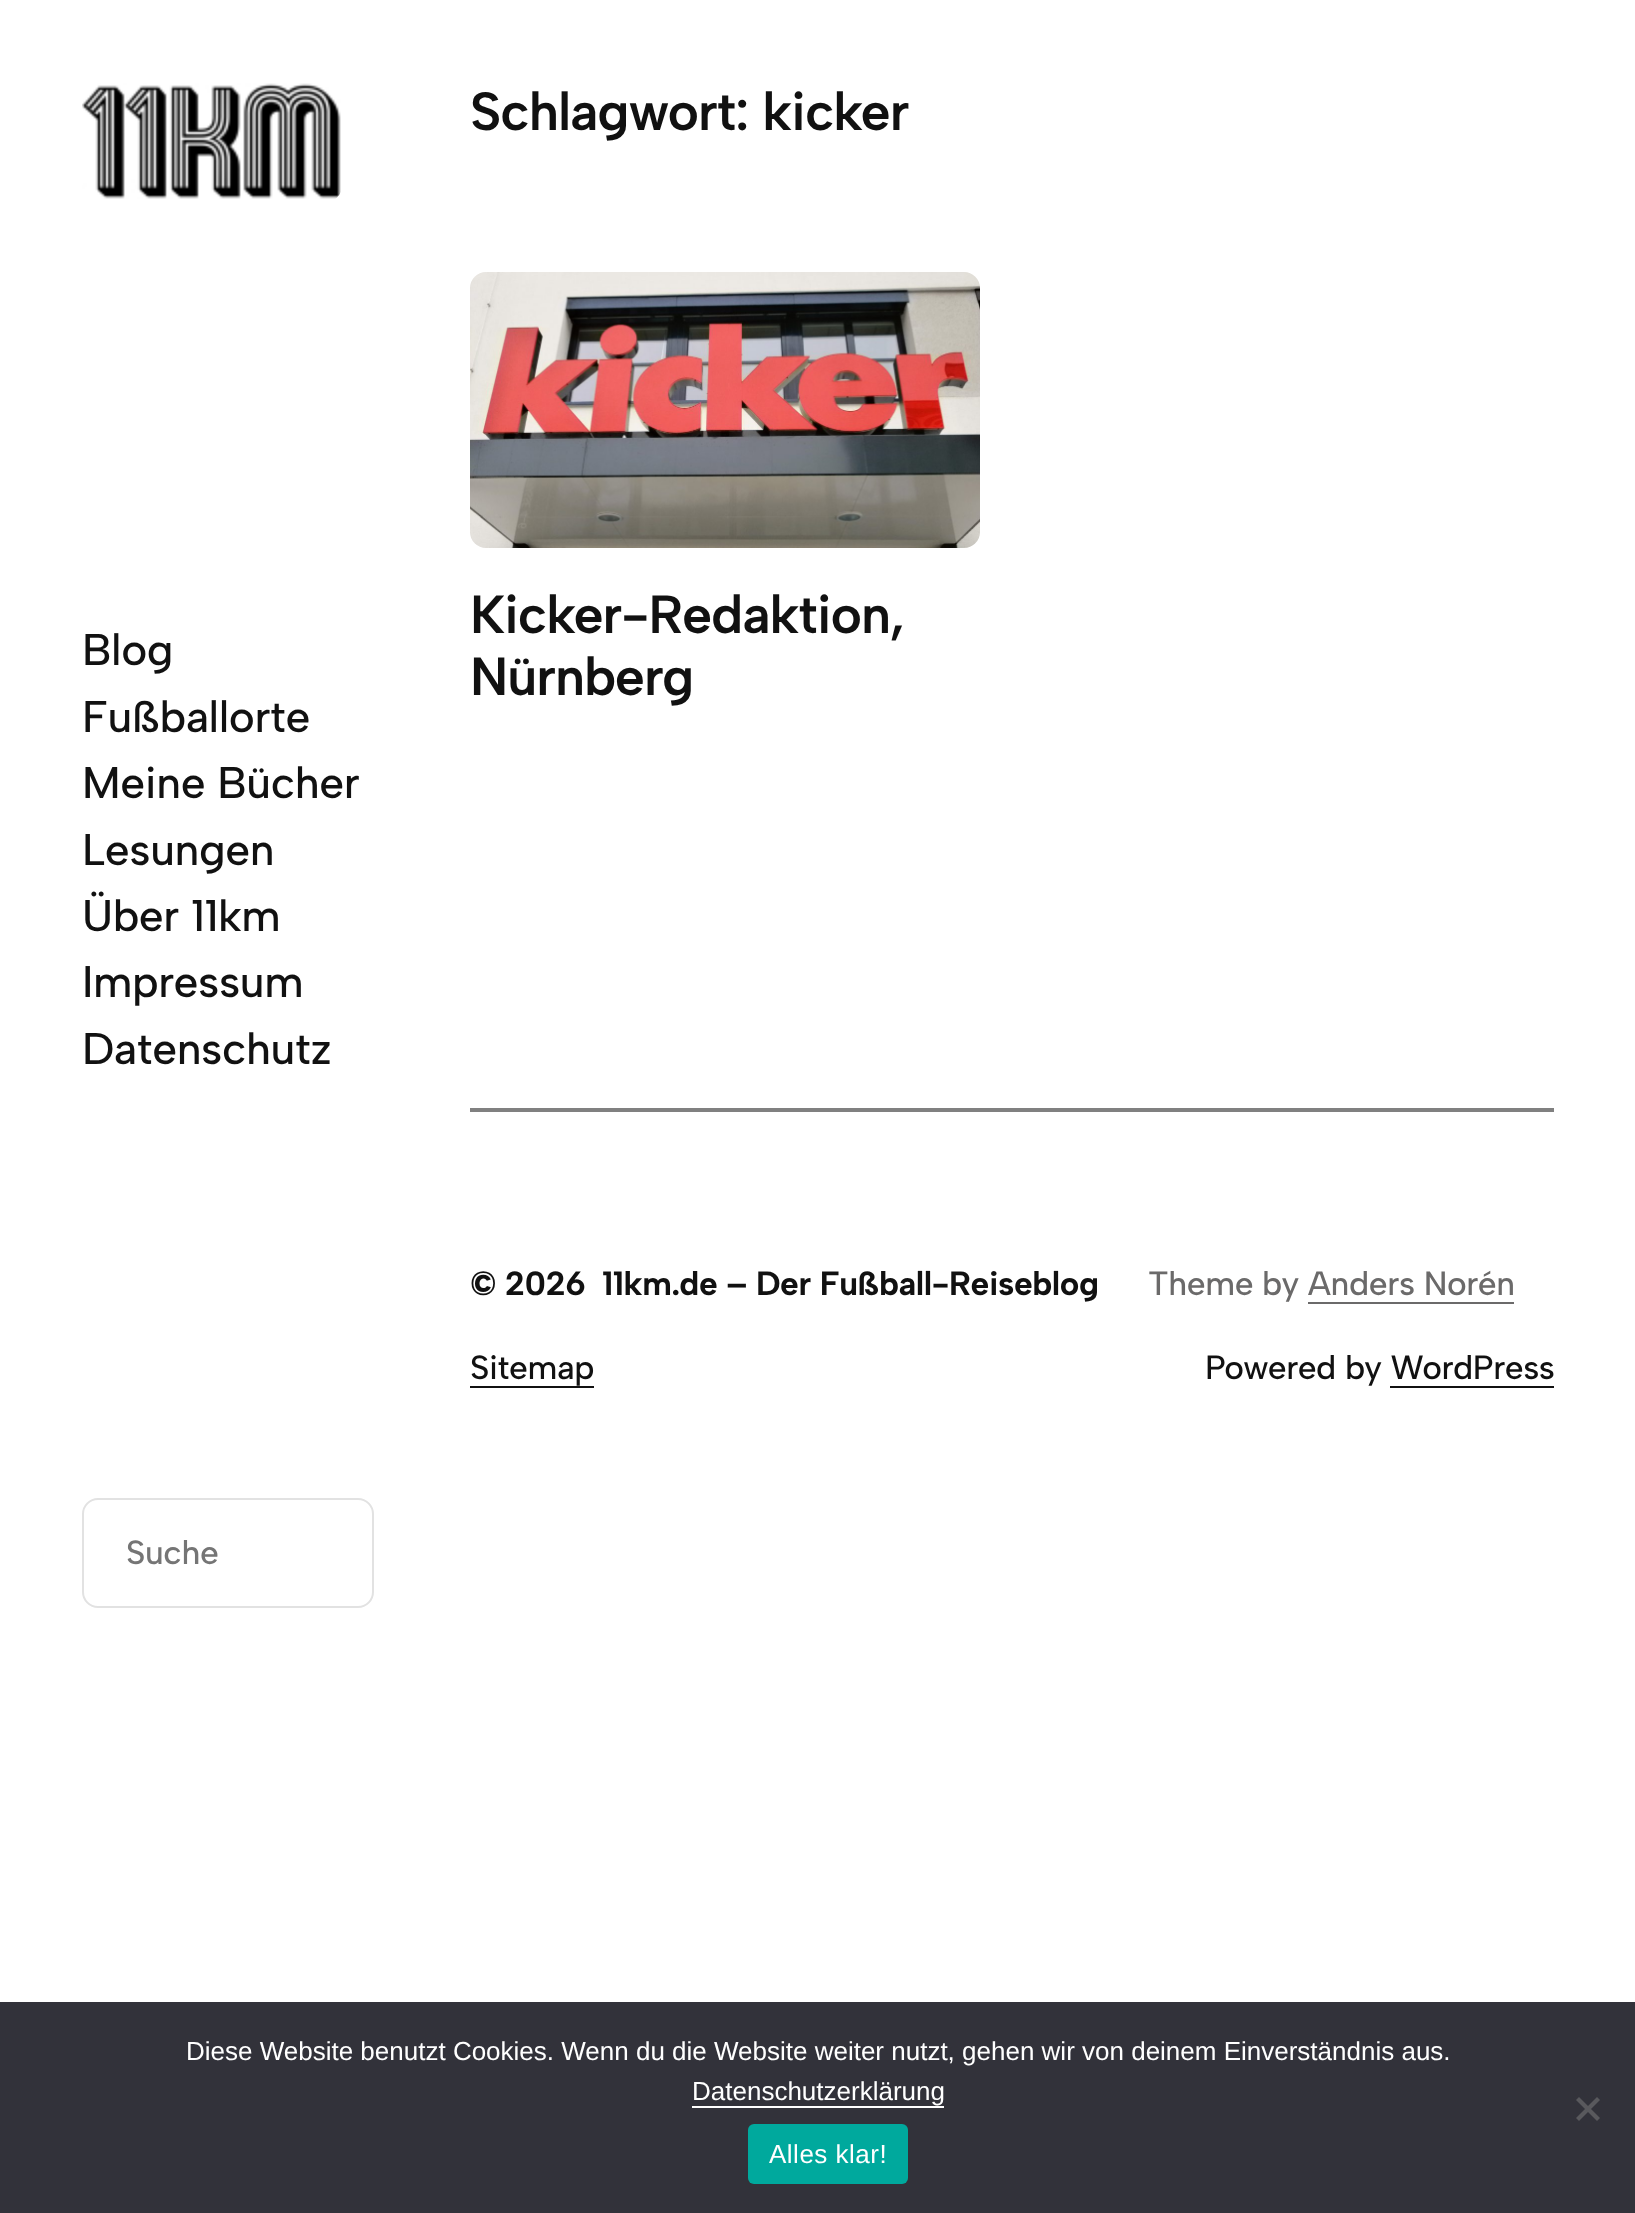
<svg xmlns="http://www.w3.org/2000/svg" width="1635" height="2213" viewBox="0 0 1635 2213">
  <rect width="100%" height="100%" fill="#ffffff"/>
  <image x="82" y="83" width="259" height="116" href="img1.png"/>
  <text x="82" y="665" font-family="Albert Sans" font-size="44.25" font-weight="500" letter-spacing="-0.4" fill="#111111">Blog</text>
  <text x="82" y="732" font-family="Albert Sans" font-size="44.25" font-weight="500" letter-spacing="-0.4" fill="#111111">Fußballorte</text>
  <text x="82" y="798" font-family="Albert Sans" font-size="44.25" font-weight="500" letter-spacing="-0.4" fill="#111111">Meine Bücher</text>
  <text x="82" y="865" font-family="Albert Sans" font-size="44.25" font-weight="500" letter-spacing="-0.4" fill="#111111">Lesungen</text>
  <text x="82" y="931" font-family="Albert Sans" font-size="44.25" font-weight="500" letter-spacing="-0.4" fill="#111111">Über 11km</text>
  <text x="82" y="997" font-family="Albert Sans" font-size="44.25" font-weight="500" letter-spacing="-0.4" fill="#111111">Impressum</text>
  <text x="82" y="1064" font-family="Albert Sans" font-size="44.25" font-weight="500" letter-spacing="-0.4" fill="#111111">Datenschutz</text>
  <rect x="83" y="1499" width="290" height="108" rx="15" fill="none" stroke="#e2e2e2" stroke-width="2"/>
  <text x="126" y="1564" font-family="Albert Sans" font-size="33.5" font-weight="500" letter-spacing="-0.4" fill="#757575">Suche</text>
  <text x="470" y="130" font-family="Albert Sans" font-size="53.75" font-weight="600" letter-spacing="-1.1" fill="#111111">Schlagwort: kicker</text>
  <image x="470" y="272" width="510" height="276" href="img2.png"/>
  <text x="470" y="633" font-family="Albert Sans" font-size="53.75" font-weight="600" letter-spacing="-1.1" fill="#111111">Kicker-Redaktion,</text>
  <text x="470" y="695" font-family="Albert Sans" font-size="53.75" font-weight="600" letter-spacing="-1.1" fill="#111111">Nürnberg</text>
  <rect x="470" y="1108" width="1084" height="4" fill="#808080"/>
  <text x="470" y="1295" font-family="Albert Sans" font-size="33.5" font-weight="bold" letter-spacing="-0.4" fill="#111111">© 2026</text>
  <text x="602" y="1295" font-family="Albert Sans" font-size="33.5" font-weight="bold" letter-spacing="-0.4" fill="#111111">11km.de – Der Fußball-Reiseblog</text>
  <text x="1148" y="1295" font-family="Albert Sans" font-size="33.5" font-weight="500" letter-spacing="-0.4" fill="#6b6a6a">Theme by Anders Norén</text>
  <rect x="1308" y="1302" width="206" height="2" fill="#6b6a6a"/>
  <text x="470" y="1379" font-family="Albert Sans" font-size="33.5" font-weight="500" letter-spacing="-0.4" fill="#111111">Sitemap</text>
  <rect x="470" y="1386" width="124" height="2" fill="#111111"/>
  <text x="1205" y="1379" font-family="Albert Sans" font-size="33.5" font-weight="500" letter-spacing="-0.4" fill="#111111">Powered by WordPress</text>
  <rect x="1390" y="1386" width="164" height="2" fill="#111111"/>
  <rect x="0" y="2002" width="1635" height="211" fill="#32323a"/>
  <text x="186" y="2060" font-family="Liberation Sans" font-size="26" fill="#ffffff">Diese Website benutzt Cookies. Wenn du die Website weiter nutzt, gehen wir von deinem Einverständnis aus.</text>
  <text x="692" y="2100" font-family="Liberation Sans" font-size="26" fill="#ffffff">Datenschutzerklärung</text>
  <rect x="692" y="2106" width="252" height="2" fill="#ffffff"/>
  <path d="M1597 2097L1600 2100L1579 2121L1576 2118Z" fill="#59595d"/>
  <path d="M1576 2100L1579 2097L1600 2118L1597 2121Z" fill="#59595d"/>
  <rect x="748" y="2124" width="160" height="60" rx="6" fill="#00a99d"/>
  <text x="769" y="2163" font-family="Liberation Sans" font-size="26" letter-spacing="0.5" fill="#ffffff">Alles klar!</text>
</svg>
